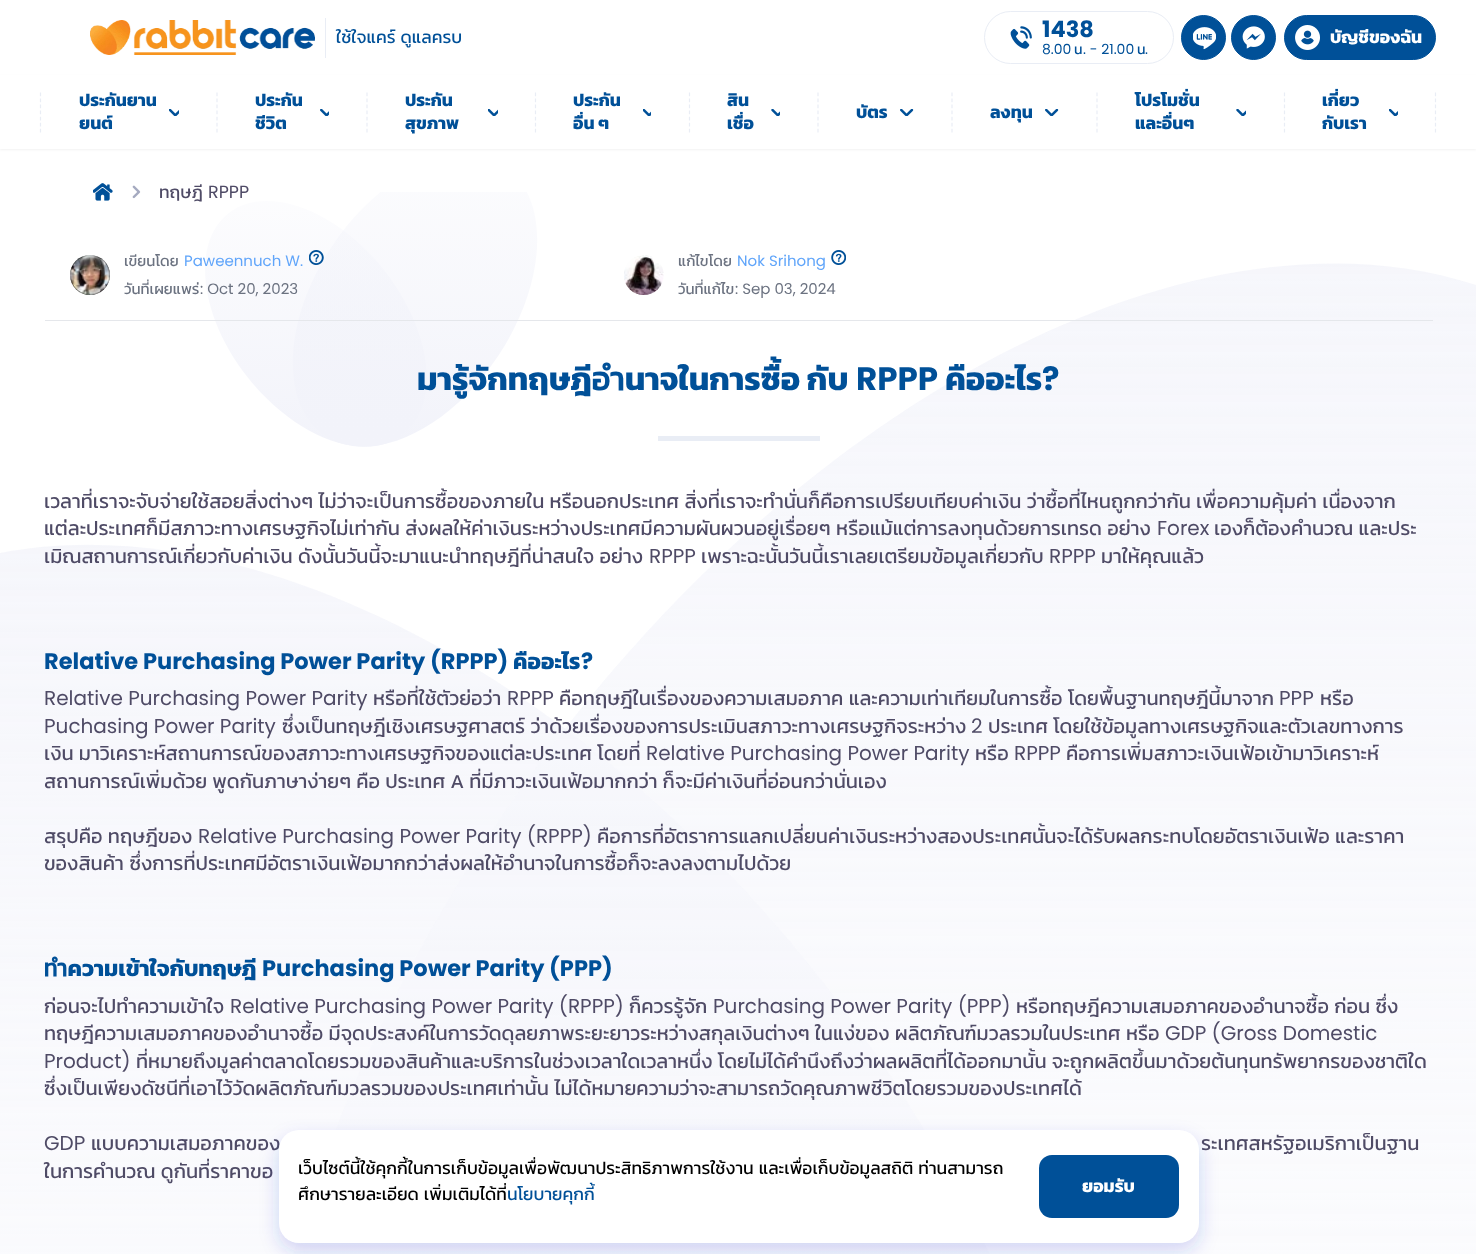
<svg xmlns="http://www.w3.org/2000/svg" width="1476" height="1254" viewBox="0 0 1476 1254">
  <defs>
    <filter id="blur1" x="-50%" y="-200%" width="200%" height="500%"><feGaussianBlur stdDeviation="1"/></filter>
    <filter id="blur2" x="-50%" y="-200%" width="200%" height="500%"><feGaussianBlur stdDeviation="9.5"/></filter>
  </defs>
  <rect width="100%" height="100%" fill="#ffffff"/>
  <image x="0" y="192" width="1476" height="1062" href="img1.png"/>
  <image x="90" y="20" width="225" height="35" href="img2.png"/>
  <rect x="325" y="18" width="1" height="40" fill="#e9edf5"/>
  <text x="336" y="43" word-spacing="1" font-family="Kanit" font-size="17.5" fill="#005098">ใช้ใจแคร์ ดูแลครบ</text>
  <rect x="984.5" y="11.5" width="189" height="52" rx="26" fill="none" stroke="#e9edf5"/>
  <image x="1010" y="26" width="22" height="23" href="img3.png"/>
  <text x="1042" y="37" font-family="Poppins" font-size="22.5" font-weight="bold" fill="#005098">1438</text>
  <text x="1042" y="54" font-family="Poppins" font-size="14" fill="#005098">8.00</text>
  <text x="1074" y="54" font-family="Kanit" font-size="14" fill="#005098">น</text>
  <text x="1083" y="54" font-family="Poppins" font-size="14" fill="#005098">. - 21.00</text>
  <text x="1137" y="54" font-family="Kanit" font-size="14" fill="#005098">น</text>
  <text x="1145" y="54" font-family="Poppins" font-size="14" fill="#005098">.</text>
  <circle cx="1203.5" cy="37.5" r="22" fill="#005098" stroke="#005098"/>
  <image x="1193" y="27" width="23" height="23" href="img4.png"/>
  <circle cx="1253.5" cy="37.5" r="22" fill="#005098" stroke="#005098"/>
  <image x="1242" y="26" width="23" height="23" href="img5.png"/>
  <rect x="1284.5" y="15.5" width="151" height="44" rx="22" fill="#005098" stroke="#005098"/>
  <image x="1295" y="25" width="25" height="25" href="img6.png"/>
  <text x="1330" y="43" font-family="Kanit" font-size="17.5" font-weight="bold" fill="#ffffff">บัญชีของฉัน</text>
  <rect x="0" y="76" width="1476" height="74" fill="#000000" fill-opacity="0.05" filter="url(#blur1)"/>
  <rect x="0" y="75" width="1476" height="74" fill="#ffffff"/>
  <path d="M40.5 92.5V132.5" fill="none" stroke="#e9edf5" stroke-width="1.2" stroke-dasharray="3.75 2.29"/>
  <text x="79" y="106" font-family="Kanit" font-size="17.5" font-weight="bold" fill="#005098">ประกันยาน</text>
  <text x="79" y="129" font-family="Kanit" font-size="17.5" font-weight="bold" fill="#005098">ยนต์</text>
  <image x="169" y="109" width="10" height="7" href="img7.png"/>
  <path d="M217 92.5V132.5" fill="none" stroke="#e9edf5" stroke-width="1.2" stroke-dasharray="3.75 2.29"/>
  <text x="255" y="106" font-family="Kanit" font-size="17.5" font-weight="bold" fill="#005098">ประกัน</text>
  <text x="255" y="129" font-family="Kanit" font-size="17.5" font-weight="bold" fill="#005098">ชีวิต</text>
  <image x="320" y="109" width="9" height="7" href="img8.png"/>
  <path d="M367 92.5V132.5" fill="none" stroke="#e9edf5" stroke-width="1.2" stroke-dasharray="3.75 2.29"/>
  <text x="405" y="106" font-family="Kanit" font-size="17.5" font-weight="bold" fill="#005098">ประกัน</text>
  <text x="405" y="129" font-family="Kanit" font-size="17.5" font-weight="bold" fill="#005098">สุขภาพ</text>
  <image x="488" y="109" width="10" height="7" href="img9.png"/>
  <path d="M535.5 92.5V132.5" fill="none" stroke="#e9edf5" stroke-width="1.2" stroke-dasharray="3.75 2.29"/>
  <text x="573" y="106" font-family="Kanit" font-size="17.5" font-weight="bold" fill="#005098">ประกัน</text>
  <text x="573" y="129" font-family="Kanit" font-size="17.5" font-weight="bold" fill="#005098">อื่น ๆ</text>
  <image x="643" y="109" width="8" height="7" href="img10.png"/>
  <path d="M689.5 92.5V132.5" fill="none" stroke="#e9edf5" stroke-width="1.2" stroke-dasharray="3.75 2.29"/>
  <text x="727" y="106" font-family="Kanit" font-size="17.5" font-weight="bold" fill="#005098">สิน</text>
  <text x="727" y="129" font-family="Kanit" font-size="17.5" font-weight="bold" fill="#005098">เชื่อ</text>
  <image x="771" y="109" width="9" height="7" href="img11.png"/>
  <path d="M818 92.5V132.5" fill="none" stroke="#e9edf5" stroke-width="1.2" stroke-dasharray="3.75 2.29"/>
  <text x="856" y="118" font-family="Kanit" font-size="17.5" font-weight="bold" fill="#005098">บัตร</text>
  <image x="900" y="109" width="14" height="7" href="img12.png"/>
  <path d="M952 92.5V132.5" fill="none" stroke="#e9edf5" stroke-width="1.2" stroke-dasharray="3.75 2.29"/>
  <text x="990" y="118" font-family="Kanit" font-size="17.5" font-weight="bold" fill="#005098">ลงทุน</text>
  <image x="1045" y="109" width="14" height="7" href="img12.png"/>
  <path d="M1097 92.5V132.5" fill="none" stroke="#e9edf5" stroke-width="1.2" stroke-dasharray="3.75 2.29"/>
  <text x="1135" y="106" font-family="Kanit" font-size="17.5" font-weight="bold" fill="#005098">โปรโมชั่น</text>
  <text x="1135" y="129" font-family="Kanit" font-size="17.5" font-weight="bold" fill="#005098">และอื่นๆ</text>
  <image x="1236" y="109" width="10" height="7" href="img13.png"/>
  <path d="M1435.5 92.5V132.5" fill="none" stroke="#e9edf5" stroke-width="1.2" stroke-dasharray="3.75 2.29"/>
  <path d="M1284.5 92.5V132.5" fill="none" stroke="#e9edf5" stroke-width="1.2" stroke-dasharray="3.75 2.29"/>
  <text x="1322" y="106" font-family="Kanit" font-size="17.5" font-weight="bold" fill="#005098">เกี่ยว</text>
  <text x="1322" y="129" font-family="Kanit" font-size="17.5" font-weight="bold" fill="#005098">กับเรา</text>
  <image x="1389" y="109" width="9" height="7" href="img14.png"/>
  <image x="93" y="183" width="20" height="18" href="img15.png"/>
  <image x="132" y="185" width="9" height="14" href="img16.png"/>
  <text x="159" y="198" font-family="Kanit" font-size="17.5" fill="#4f4b66">ทฤษฎี</text>
  <text x="208" y="198" font-family="Poppins" font-size="17.5" fill="#4f4b66">RPPP</text>
  <rect x="45" y="320" width="1388" height="1" fill="#e5e7eb"/>
  <image x="70" y="255" width="40" height="40" href="img17.png"/>
  <text x="124" y="266" font-family="Kanit" font-size="15" fill="#6b7280">เขียนโดย</text>
  <text x="184" y="266" font-family="Poppins" font-size="15" fill="#60a5fa">Paweennuch W.</text>
  <image x="309" y="250" width="15" height="15" href="img18.png"/>
  <text x="124" y="294" font-family="Kanit" font-size="15" fill="#6b7280">วันที่เผยแพร่</text>
  <text x="200" y="294" font-family="Poppins" font-size="15" fill="#6b7280">: Oct 20, 2023</text>
  <image x="624" y="255" width="40" height="40" href="img19.png"/>
  <text x="678" y="266" font-family="Kanit" font-size="15" fill="#6b7280">แก้ไขโดย</text>
  <text x="737" y="266" font-family="Poppins" font-size="15" fill="#60a5fa">Nok Srihong</text>
  <image x="831" y="250" width="15" height="15" href="img20.png"/>
  <text x="678" y="294" font-family="Kanit" font-size="15" fill="#6b7280">วันที่แก้ไข</text>
  <text x="735" y="294" font-family="Poppins" font-size="15" fill="#6b7280">: Sep 03, 2024</text>
  <text x="417" y="390" font-family="Kanit" font-size="32.5" font-weight="bold" fill="#005098">มารู้จักทฤษฎีอำนาจในการซื้อ กับ</text>
  <text x="856" y="390" font-family="Poppins" font-size="32.5" font-weight="bold" fill="#005098">RPPP</text>
  <text x="945" y="390" font-family="Kanit" font-size="32.5" font-weight="bold" fill="#005098">คืออะไร</text>
  <text x="1042" y="390" font-family="Poppins" font-size="32.5" font-weight="bold" fill="#005098">?</text>
  <rect x="658" y="436" width="162" height="5" fill="#e9edf5"/>
  <text x="44" y="508" word-spacing="0.75" font-family="Kanit" font-size="20" fill="#4f4b66">เวลาที่เราจะจับจ่ายใช้สอยสิ่งต่างๆ ไม่ว่าจะเป็นการซื้อของภายใน หรือนอกประเทศ สิ่งที่เราจะทำนั่นก็คือการเปรียบเทียบค่าเงิน ว่าซื้อที่ไหนถูกกว่ากัน เพื่อความคุ้มค่า เนื่องจาก</text>
  <text x="44" y="535" word-spacing="0.75" font-family="Kanit" font-size="20" fill="#4f4b66">แต่ละประเทศก็มีสภาวะทางเศรษฐกิจไม่เท่ากัน ส่งผลให้ค่าเงินระหว่างประเทศมีความผันผวนอยู่เรื่อยๆ หรือแม้แต่การลงทุนด้วยการเทรด อย่าง</text>
  <text x="1157" y="535" font-family="Poppins" font-size="20" fill="#4f4b66">Forex</text>
  <text x="1214" y="535" word-spacing="0.75" font-family="Kanit" font-size="20" fill="#4f4b66">เองก็ต้องคำนวณ และประ</text>
  <text x="44" y="563" word-spacing="0.75" font-family="Kanit" font-size="20" fill="#4f4b66">เมิณสถานการณ์เกี่ยวกับค่าเงิน ดังนั้นวันนี้จะมาแนะนำทฤษฎีที่น่าสนใจ อย่าง</text>
  <text x="649" y="563" font-family="Poppins" font-size="20" fill="#4f4b66">RPPP</text>
  <text x="701" y="563" font-family="Kanit" font-size="20" fill="#4f4b66">เพราะฉะนั้นวันนี้เราเลยเตรียมข้อมูลเกี่ยวกับ</text>
  <text x="1049" y="563" font-family="Poppins" font-size="20" fill="#4f4b66">RPPP</text>
  <text x="1101" y="563" font-family="Kanit" font-size="20" fill="#4f4b66">มาให้คุณแล้ว</text>
  <text x="44" y="669" font-family="Poppins" font-size="22.5" font-weight="bold" fill="#005098">Relative Purchasing Power Parity (RPPP)</text>
  <text x="513" y="669" font-family="Kanit" font-size="22.5" font-weight="bold" fill="#005098">คืออะไร</text>
  <text x="581" y="669" font-family="Poppins" font-size="22.5" font-weight="bold" fill="#005098">?</text>
  <text x="44" y="705" font-family="Poppins" font-size="20" fill="#4f4b66">Relative Purchasing Power Parity</text>
  <text x="373" y="705" font-family="Kanit" font-size="20" fill="#4f4b66">หรือที่ใช้ตัวย่อว่า</text>
  <text x="507" y="705" font-family="Poppins" font-size="20" fill="#4f4b66">RPPP</text>
  <text x="559" y="705" word-spacing="0.75" font-family="Kanit" font-size="20" fill="#4f4b66">คือทฤษฎีในเรื่องของความเสมอภาค และความเท่าเทียมในการซื้อ โดยพื้นฐานทฤษฎีนี้มาจาก</text>
  <text x="1279" y="705" font-family="Poppins" font-size="20" fill="#4f4b66">PPP</text>
  <text x="1320" y="705" font-family="Kanit" font-size="20" fill="#4f4b66">หรือ</text>
  <text x="44" y="733" font-family="Poppins" font-size="20" fill="#4f4b66">Puchasing Power Parity</text>
  <text x="282" y="733" word-spacing="0.75" font-family="Kanit" font-size="20" fill="#4f4b66">ซึ่งเป็นทฤษฎีเชิงเศรษฐศาสตร์ ว่าด้วยเรื่องของการประเมินสภาวะทางเศรษฐกิจระหว่าง</text>
  <text x="971" y="733" font-family="Poppins" font-size="20" fill="#4f4b66">2</text>
  <text x="988" y="733" word-spacing="0.75" font-family="Kanit" font-size="20" fill="#4f4b66">ประเทศ โดยใช้ข้อมูลทางเศรษฐกิจและตัวเลขทางการ</text>
  <text x="44" y="760" word-spacing="0.75" font-family="Kanit" font-size="20" fill="#4f4b66">เงิน มาวิเคราะห์สถานการณ์ของสภาวะทางเศรษฐกิจของแต่ละประเทศ โดยที่</text>
  <text x="646" y="760" font-family="Poppins" font-size="20" fill="#4f4b66">Relative Purchasing Power Parity</text>
  <text x="975" y="760" font-family="Kanit" font-size="20" fill="#4f4b66">หรือ</text>
  <text x="1014" y="760" font-family="Poppins" font-size="20" fill="#4f4b66">RPPP</text>
  <text x="1066" y="760" font-family="Kanit" font-size="20" fill="#4f4b66">คือการเพิ่มสภาวะเงินเฟ้อเข้ามาวิเคราะห์</text>
  <text x="44" y="788" word-spacing="0.5" font-family="Kanit" font-size="20" fill="#4f4b66">สถานการณ์เพิ่มด้วย พูดกันภาษาง่ายๆ คือ ประเทศ A ที่มีภาวะเงินเฟ้อมากกว่า ก็จะมีค่าเงินที่อ่อนกว่านั่นเอง</text>
  <text x="44" y="843" word-spacing="0.75" font-family="Kanit" font-size="20" fill="#4f4b66">สรุปคือ ทฤษฎีของ</text>
  <text x="198" y="843" font-family="Poppins" font-size="20" fill="#4f4b66">Relative Purchasing Power Parity (RPPP)</text>
  <text x="597" y="843" word-spacing="0.75" font-family="Kanit" font-size="20" fill="#4f4b66">คือการที่อัตราการแลกเปลี่ยนค่าเงินระหว่างสองประเทศนั้นจะได้รับผลกระทบโดยอัตราเงินเฟ้อ และราคา</text>
  <text x="44" y="870" word-spacing="1" font-family="Kanit" font-size="20" fill="#4f4b66">ของสินค้า ซึ่งการที่ประเทศมีอัตราเงินเฟ้อมากกว่าส่งผลให้อำนาจในการซื้อก็จะลงลงตามไปด้วย</text>
  <text x="44" y="976" font-family="Kanit" font-size="22.5" font-weight="bold" fill="#005098">ทำความเข้าใจกับทฤษฎี</text>
  <text x="262" y="976" font-family="Poppins" font-size="22.5" font-weight="bold" fill="#005098">Purchasing Power Parity (PPP)</text>
  <text x="44" y="1013" font-family="Kanit" font-size="20" fill="#4f4b66">ก่อนจะไปทำความเข้าใจ</text>
  <text x="230" y="1013" font-family="Poppins" font-size="20" fill="#4f4b66">Relative Purchasing Power Parity (RPPP)</text>
  <text x="629" y="1013" font-family="Kanit" font-size="20" fill="#4f4b66">ก็ควรรู้จัก</text>
  <text x="713" y="1013" font-family="Poppins" font-size="20" fill="#4f4b66">Purchasing Power Parity (PPP)</text>
  <text x="1016" y="1013" word-spacing="0.75" font-family="Kanit" font-size="20" fill="#4f4b66">หรือทฤษฎีความเสมอภาคของอํานาจซื้อ ก่อน ซึ่ง</text>
  <text x="44" y="1040" word-spacing="0.75" font-family="Kanit" font-size="20" fill="#4f4b66">ทฤษฎีความเสมอภาคของอํานาจซื้อ มีจุดประสงค์ในการวัดดุลยภาพระยะยาวระหว่างสกุลเงินต่างๆ ในแง่ของ ผลิตภัณฑ์มวลรวมในประเทศ หรือ</text>
  <text x="1165" y="1040" font-family="Poppins" font-size="20" fill="#4f4b66">GDP (Gross Domestic</text>
  <text x="44" y="1068" font-family="Poppins" font-size="20" fill="#4f4b66">Product)</text>
  <text x="136" y="1068" word-spacing="0.75" font-family="Kanit" font-size="20" fill="#4f4b66">ที่หมายถึงมูลค่าตลาดโดยรวมของสินค้าและบริการในช่วงเวลาใดเวลาหนึ่ง โดยไม่ได้คำนึงถึงว่าผลผลิตที่ได้ออกมานั้น จะถูกผลิตขึ้นมาด้วยต้นทุนทรัพยากรของชาติใด</text>
  <text x="44" y="1095" word-spacing="1" font-family="Kanit" font-size="20" fill="#4f4b66">ซึ่งเป็นเพียงดัชนีที่เอาไว้วัดผลิตภัณฑ์มวลรวมของประเทศเท่านั้น ไม่ได้หมายความว่าจะสามารถวัดคุณภาพชีวิตโดยรวมของประเทศได้</text>
  <text x="44" y="1150" font-family="Poppins" font-size="20" fill="#4f4b66">GDP</text>
  <text x="91" y="1150" word-spacing="0.75" font-family="Kanit" font-size="20" fill="#4f4b66">แบบความเสมอภาคของ</text>
  <text x="1201" y="1150" word-spacing="0.75" font-family="Kanit" font-size="20" fill="#4f4b66">ระเทศสหรัฐอเมริกาเป็นฐาน</text>
  <text x="44" y="1178" word-spacing="0.75" font-family="Kanit" font-size="20" fill="#4f4b66">ในการคำนวณ ดูกันที่ราคาขอ</text>
  <rect x="279" y="1139" width="920" height="112" rx="20" fill="#2a31cb" fill-opacity="0.2" filter="url(#blur2)"/>
  <rect x="279" y="1130" width="920" height="113" rx="20" fill="#ffffff"/>
  <text x="298" y="1174" word-spacing="1" font-family="Kanit" font-size="17.5" fill="#000000">เว็บไซต์นี้ใช้คุกกี้ในการเก็บข้อมูลเพื่อพัฒนาประสิทธิภาพการใช้งาน และเพื่อเก็บข้อมูลสถิติ ท่านสามารถ</text>
  <text x="298" y="1200" word-spacing="1" font-family="Kanit" font-size="17.5" fill="#000000">ศึกษารายละเอียด เพิ่มเติมได้ที่</text>
  <text x="507" y="1200" font-family="Kanit" font-size="17.5" fill="#005098">นโยบายคุกกี้</text>
  <rect x="1039" y="1155" width="140" height="63" rx="13" fill="#005098"/>
  <text x="1082" y="1192" font-family="Kanit" font-size="17.5" font-weight="bold" fill="#ffffff">ยอมรับ</text>
</svg>
